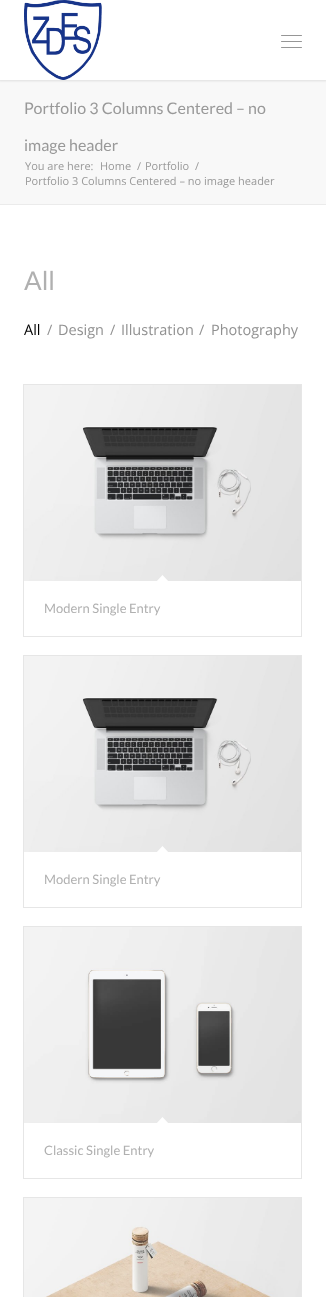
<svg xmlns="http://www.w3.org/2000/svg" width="326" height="1297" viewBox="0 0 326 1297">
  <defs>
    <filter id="blur1" x="-50%" y="-200%" width="200%" height="500%"><feGaussianBlur stdDeviation="1"/></filter>
  </defs>
  <rect width="100%" height="100%" fill="#ffffff"/>
  <rect x="0" y="80" width="326" height="124" fill="#f8f8f8"/>
  <rect x="-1" y="-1" width="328" height="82" fill="#000000" fill-opacity="0.1" filter="url(#blur1)"/>
  <rect x="0" y="0" width="326" height="80" fill="#ffffff"/>
  <image x="24" y="0" width="78" height="80" href="img1.png"/>
  <rect x="281" y="41" width="21" height="1" rx="0.5" fill="#969696"/>
  <rect x="281" y="35" width="21" height="1" rx="0.5" fill="#969696"/>
  <rect x="281" y="47" width="21" height="1" rx="0.5" fill="#969696"/>
  <text x="24" y="114" font-family="Lato" font-size="16" fill="#999999">Portfolio 3 Columns Centered – no</text>
  <text x="24" y="151" font-family="Lato" font-size="16" fill="#999999">image header</text>
  <text x="25" y="170" font-family="Open Sans" font-size="11" fill="#999999">You are here:</text>
  <text x="100" y="170" font-family="Open Sans" font-size="11" fill="#999999">Home</text>
  <text x="137" y="170" font-family="Open Sans" font-size="11" fill="#999999">/</text>
  <text x="145" y="170" font-family="Open Sans" font-size="11" fill="#999999">Portfolio</text>
  <text x="195" y="170" font-family="Open Sans" font-size="11" fill="#999999">/</text>
  <text x="25" y="185" font-family="Open Sans" font-size="11" fill="#999999">Portfolio 3 Columns Centered – no image header</text>
  <rect x="0" y="204" width="326" height="1" fill="#ebebeb"/>
  <text x="24" y="290" font-family="Lato" font-size="26" fill="#b0b0b0">All</text>
  <text x="24" y="335" font-family="Open Sans" font-size="14.5" fill="#000000">All</text>
  <text x="47" y="335" font-family="Open Sans" font-size="14.5" fill="#919191">/</text>
  <text x="58" y="335" font-family="Open Sans" font-size="14.5" fill="#919191">Design</text>
  <text x="110" y="335" font-family="Open Sans" font-size="14.5" fill="#919191">/</text>
  <text x="121" y="335" font-family="Open Sans" font-size="14.5" fill="#919191">Illustration</text>
  <text x="199" y="335" font-family="Open Sans" font-size="14.5" fill="#919191">/</text>
  <text x="211" y="335" font-family="Open Sans" font-size="14.5" fill="#919191">Photography</text>
  <rect x="23.5" y="384.5" width="278" height="252" fill="none" stroke="#e6e6e6"/>
  <image x="24" y="385" width="277" height="196" href="img2.png"/>
  <path d="M162.5 575L169.5 582.5L162.5 589.5L155.5 582.5Z" fill="#ffffff"/>
  <text x="44" y="613" font-family="Lato" font-size="13" fill="#b0b0b0">Modern Single Entry</text>
  <rect x="23.5" y="655.5" width="278" height="252" fill="none" stroke="#e6e6e6"/>
  <image x="24" y="656" width="277" height="196" href="img2.png"/>
  <path d="M162.5 846L169.5 853.5L162.5 860.5L155.5 853.5Z" fill="#ffffff"/>
  <text x="44" y="884" font-family="Lato" font-size="13" fill="#b0b0b0">Modern Single Entry</text>
  <rect x="23.5" y="926.5" width="278" height="252" fill="none" stroke="#e6e6e6"/>
  <image x="24" y="927" width="277" height="196" href="img3.png"/>
  <path d="M162.5 1117L169.5 1124.5L162.5 1131.5L155.5 1124.5Z" fill="#ffffff"/>
  <text x="44" y="1155" font-family="Lato" font-size="13" fill="#b0b0b0">Classic Single Entry</text>
  <rect x="23.5" y="1197.5" width="278" height="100" fill="none" stroke="#e6e6e6"/>
  <image x="24" y="1198" width="277" height="99" href="img4.png"/>
</svg>
